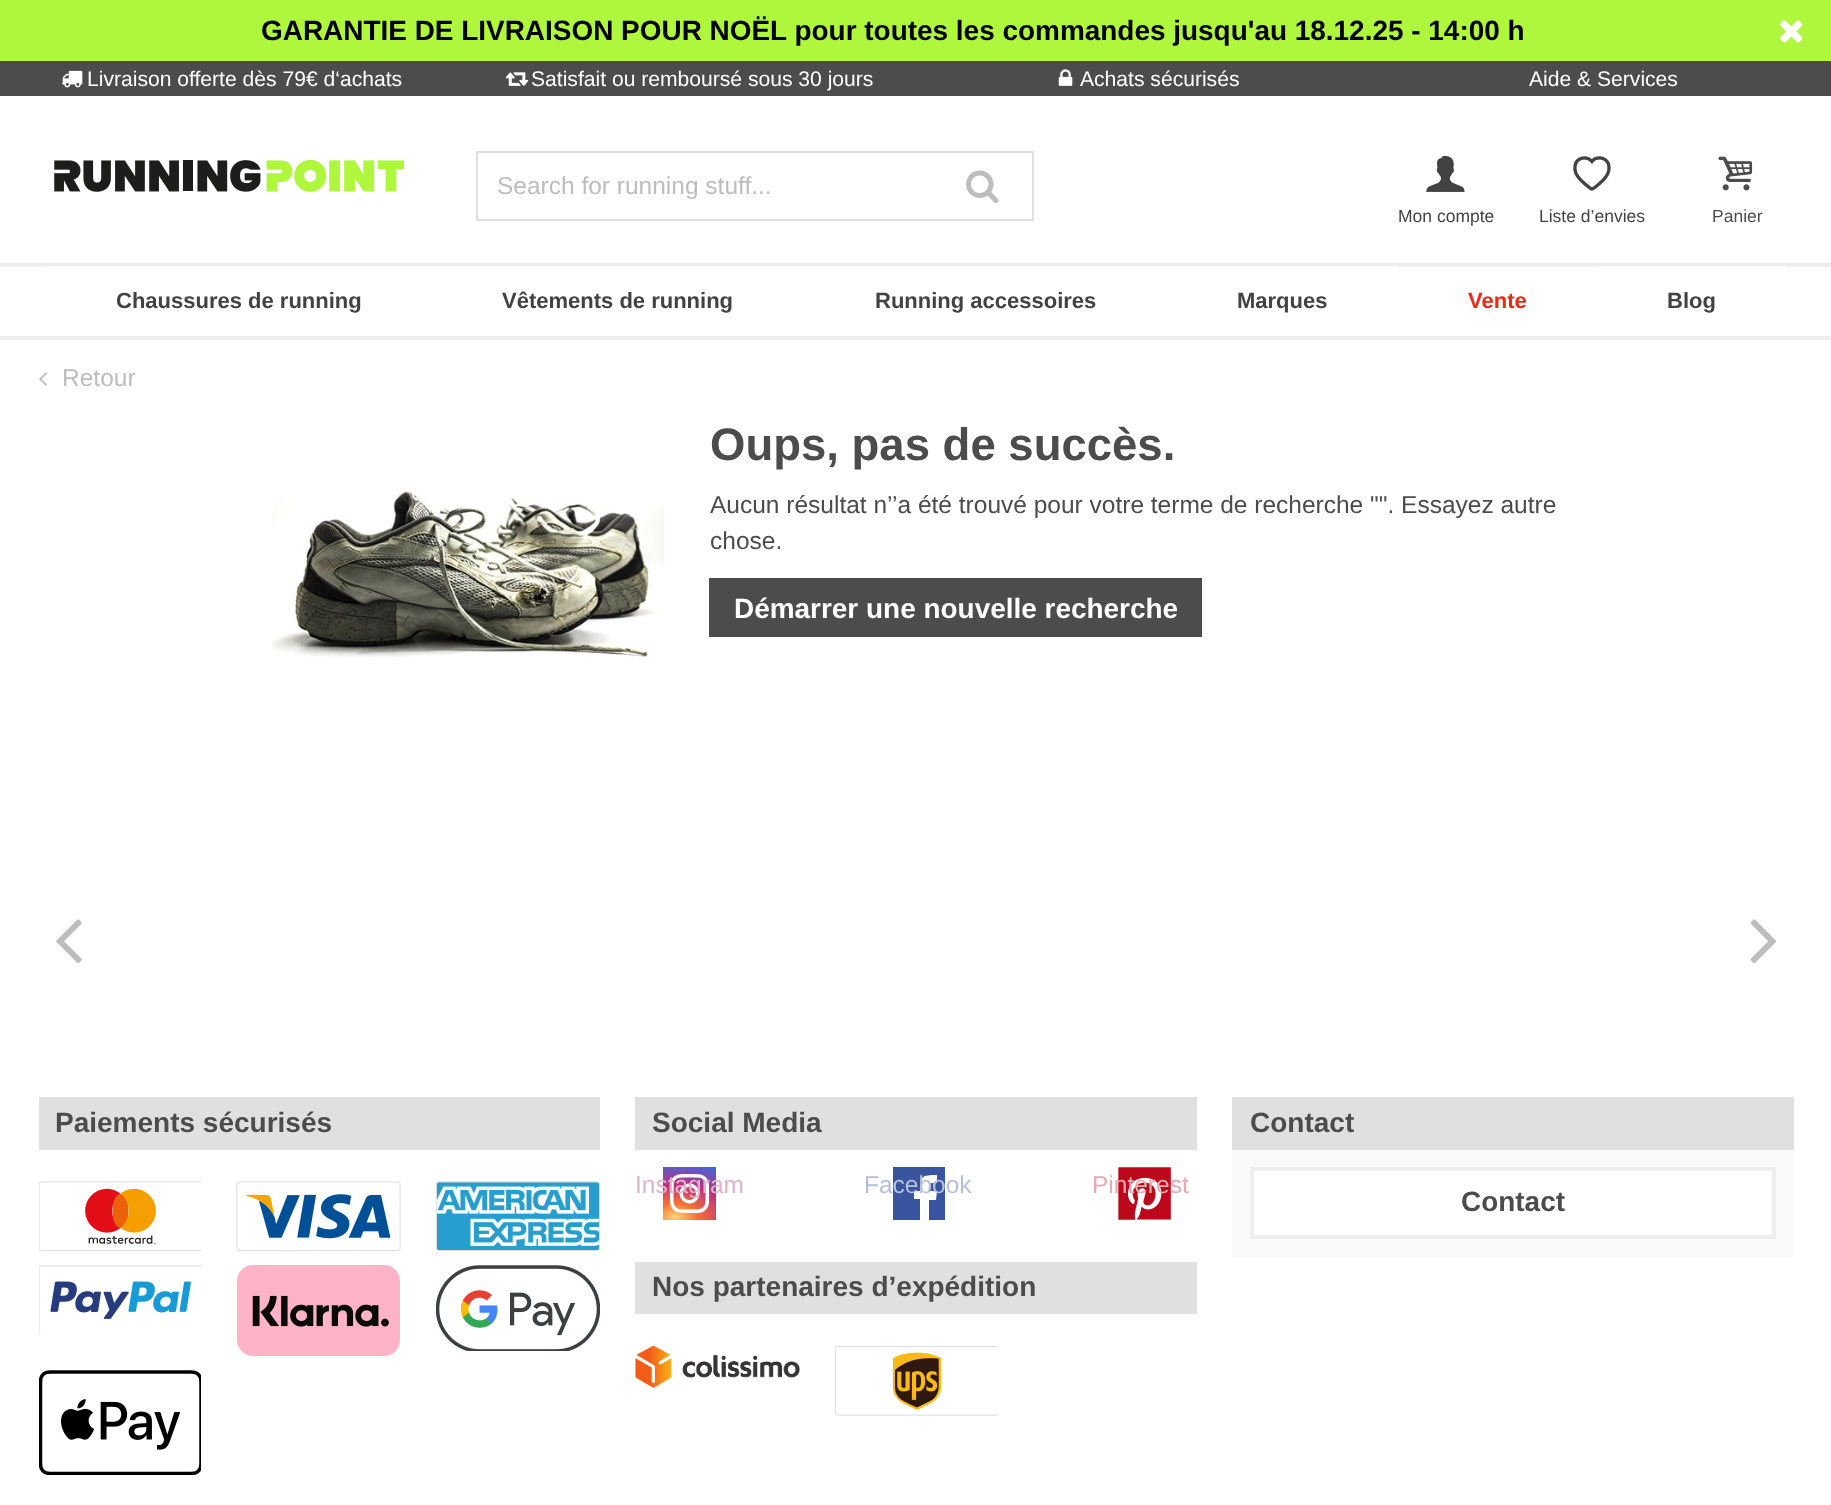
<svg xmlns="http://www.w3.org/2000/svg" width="1831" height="1505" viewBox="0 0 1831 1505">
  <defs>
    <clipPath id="clip1"><rect x="893" y="1167" width="52" height="53"/></clipPath>
  </defs>
  <rect width="100%" height="100%" fill="#ffffff"/>
  <rect x="0" y="0" width="1831" height="61" fill="#aef73c"/>
  <text x="261" y="40" font-family="Liberation Sans" font-size="27.95" font-weight="bold" fill="#000000">GARANTIE DE LIVRAISON POUR NOËL pour toutes les commandes jusqu'au 18.12.25 - 14:00 h</text>
  <image x="1780" y="20" width="23" height="23" href="img1.png"/>
  <rect x="0" y="61" width="1831" height="35" fill="#4c4c4c"/>
  <image x="62" y="70" width="21" height="18" href="img2.png"/>
  <text x="87" y="86" font-family="Liberation Sans" font-size="21.1" fill="#ffffff">Livraison offerte dès 79€ d‘achats</text>
  <image x="505" y="72" width="24" height="14" href="img3.png"/>
  <text x="531" y="86" font-family="Liberation Sans" font-size="21.1" fill="#ffffff">Satisfait ou remboursé sous 30 jours</text>
  <image x="1058" y="69" width="15" height="17" href="img4.png"/>
  <text x="1080" y="86" font-family="Liberation Sans" font-size="21.1" fill="#ffffff">Achats sécurisés</text>
  <text x="1529" y="86" font-family="Liberation Sans" font-size="21.1" fill="#ffffff">Aide &amp; Services</text>
  <image x="54" y="159" width="350" height="33" href="img5.png"/>
  <rect x="477" y="152" width="556" height="68" fill="none" stroke="#e0e0e0" stroke-width="2"/>
  <text x="497" y="194" font-family="Liberation Sans" font-size="24.5" fill="#bdbdbd">Search for running stuff...</text>
  <image x="966" y="170" width="33" height="33" href="img6.png"/>
  <image x="1426" y="155" width="39" height="37" href="img7.png"/>
  <text x="1398" y="222" font-family="Liberation Sans" font-size="17.5" fill="#424242">Mon compte</text>
  <image x="1573" y="156" width="38" height="35" href="img8.png"/>
  <text x="1539" y="222" font-family="Liberation Sans" font-size="17.5" fill="#424242">Liste d’envies</text>
  <image x="1718" y="156" width="35" height="35" href="img9.png"/>
  <text x="1712" y="222" font-family="Liberation Sans" font-size="17.5" fill="#4c4c4c">Panier</text>
  <rect x="0" y="263" width="1831" height="4" fill="#eeeeee"/>
  <rect x="0" y="336" width="1831" height="4" fill="#eeeeee"/>
  <rect x="46" y="266" width="1352" height="1" fill="#ffffff"/>
  <text x="116" y="308" font-family="Liberation Sans" font-size="22" font-weight="bold" fill="#424242">Chaussures de running</text>
  <text x="502" y="308" font-family="Liberation Sans" font-size="22" font-weight="bold" fill="#424242">Vêtements de running</text>
  <text x="875" y="308" font-family="Liberation Sans" font-size="22" font-weight="bold" fill="#424242">Running accessoires</text>
  <text x="1237" y="308" font-family="Liberation Sans" font-size="22" font-weight="bold" fill="#424242">Marques</text>
  <text x="1468" y="308" font-family="Liberation Sans" font-size="22" font-weight="bold" fill="#f22613">Vente</text>
  <rect x="1598" y="266" width="189" height="1" fill="#ffffff"/>
  <text x="1667" y="308" font-family="Liberation Sans" font-size="22" font-weight="bold" fill="#424242">Blog</text>
  <image x="39" y="372" width="8" height="14" href="img10.png"/>
  <text x="62" y="386" font-family="Liberation Sans" font-size="24.5" fill="#bdbdbd">Retour</text>
  <image x="272" y="487" width="393" height="172" href="img11.png"/>
  <text x="710" y="460" font-family="Liberation Sans" font-size="45.5" font-weight="bold" fill="#4c4c4c">Oups, pas de succès.</text>
  <text x="710" y="513" font-family="Liberation Sans" font-size="24.5" fill="#4c4c4c">Aucun résultat n’’a été trouvé pour votre terme de recherche "". Essayez autre</text>
  <text x="710" y="549" font-family="Liberation Sans" font-size="24.5" fill="#4c4c4c">chose.</text>
  <rect x="709" y="578" width="493" height="59" fill="#4c4c4c"/>
  <text x="734" y="618" font-family="Liberation Sans" font-size="27.95" font-weight="bold" fill="#ffffff">Démarrer une nouvelle recherche</text>
  <image x="56" y="919" width="26" height="45" href="img12.png"/>
  <image x="1750" y="919" width="27" height="45" href="img13.png"/>
  <rect x="39" y="1097" width="561" height="53" fill="#e0e0e0"/>
  <text x="55" y="1132" font-family="Liberation Sans" font-size="28" font-weight="bold" fill="#4c4c4c">Paiements sécurisés</text>
  <image x="39" y="1181" width="162" height="70" href="img14.png"/>
  <image x="236" y="1181" width="165" height="70" href="img15.png"/>
  <image x="436" y="1181" width="164" height="70" href="img16.png"/>
  <image x="39" y="1265" width="162" height="69" href="img17.png"/>
  <image x="237" y="1265" width="163" height="91" href="img18.png"/>
  <image x="436" y="1265" width="164" height="86" href="img19.png"/>
  <image x="39" y="1370" width="162" height="105" href="img20.png"/>
  <rect x="635" y="1097" width="562" height="53" fill="#e0e0e0"/>
  <text x="652" y="1132" font-family="Liberation Sans" font-size="28" font-weight="bold" fill="#4c4c4c">Social Media</text>
  <image x="663" y="1167" width="53" height="53" href="img21.png"/>
  <text x="635" y="1193" font-family="Liberation Sans" font-size="24.5" fill="#e1b2ce">Instagram</text>
  <g clip-path="url(#clip1)">
    <path d="M892 1167V1220H920V1199H914V1191H920C920 1176 922 1175 937 1175V1183C928 1183 929 1183 929 1191H937L936 1200H929V1220H945V1167Z" fill="#3a559f"/>
  </g>
  <text x="864" y="1193" font-family="Liberation Sans" font-size="24.5" fill="#b6c0db">Facebook</text>
  <image x="1118" y="1167" width="53" height="53" href="img22.png"/>
  <text x="1092" y="1193" font-family="Liberation Sans" font-size="24.5" fill="#e8abb2">Pinterest</text>
  <rect x="635" y="1262" width="562" height="52" fill="#e0e0e0"/>
  <text x="652" y="1296" font-family="Liberation Sans" font-size="28" font-weight="bold" fill="#4c4c4c">Nos partenaires d’expédition</text>
  <image x="635" y="1345" width="165" height="43" href="img23.png"/>
  <image x="835" y="1346" width="163" height="70" href="img24.png"/>
  <rect x="1232" y="1097" width="562" height="53" fill="#e0e0e0"/>
  <text x="1250" y="1132" font-family="Liberation Sans" font-size="28" font-weight="bold" fill="#4c4c4c">Contact</text>
  <rect x="1232" y="1150" width="562" height="107" fill="#fafafa"/>
  <rect x="1252" y="1169" width="522" height="68" fill="#ffffff" stroke="#eeeeee" stroke-width="4"/>
  <text x="1461" y="1211" font-family="Liberation Sans" font-size="27.95" font-weight="bold" fill="#4c4c4c">Contact</text>
</svg>
